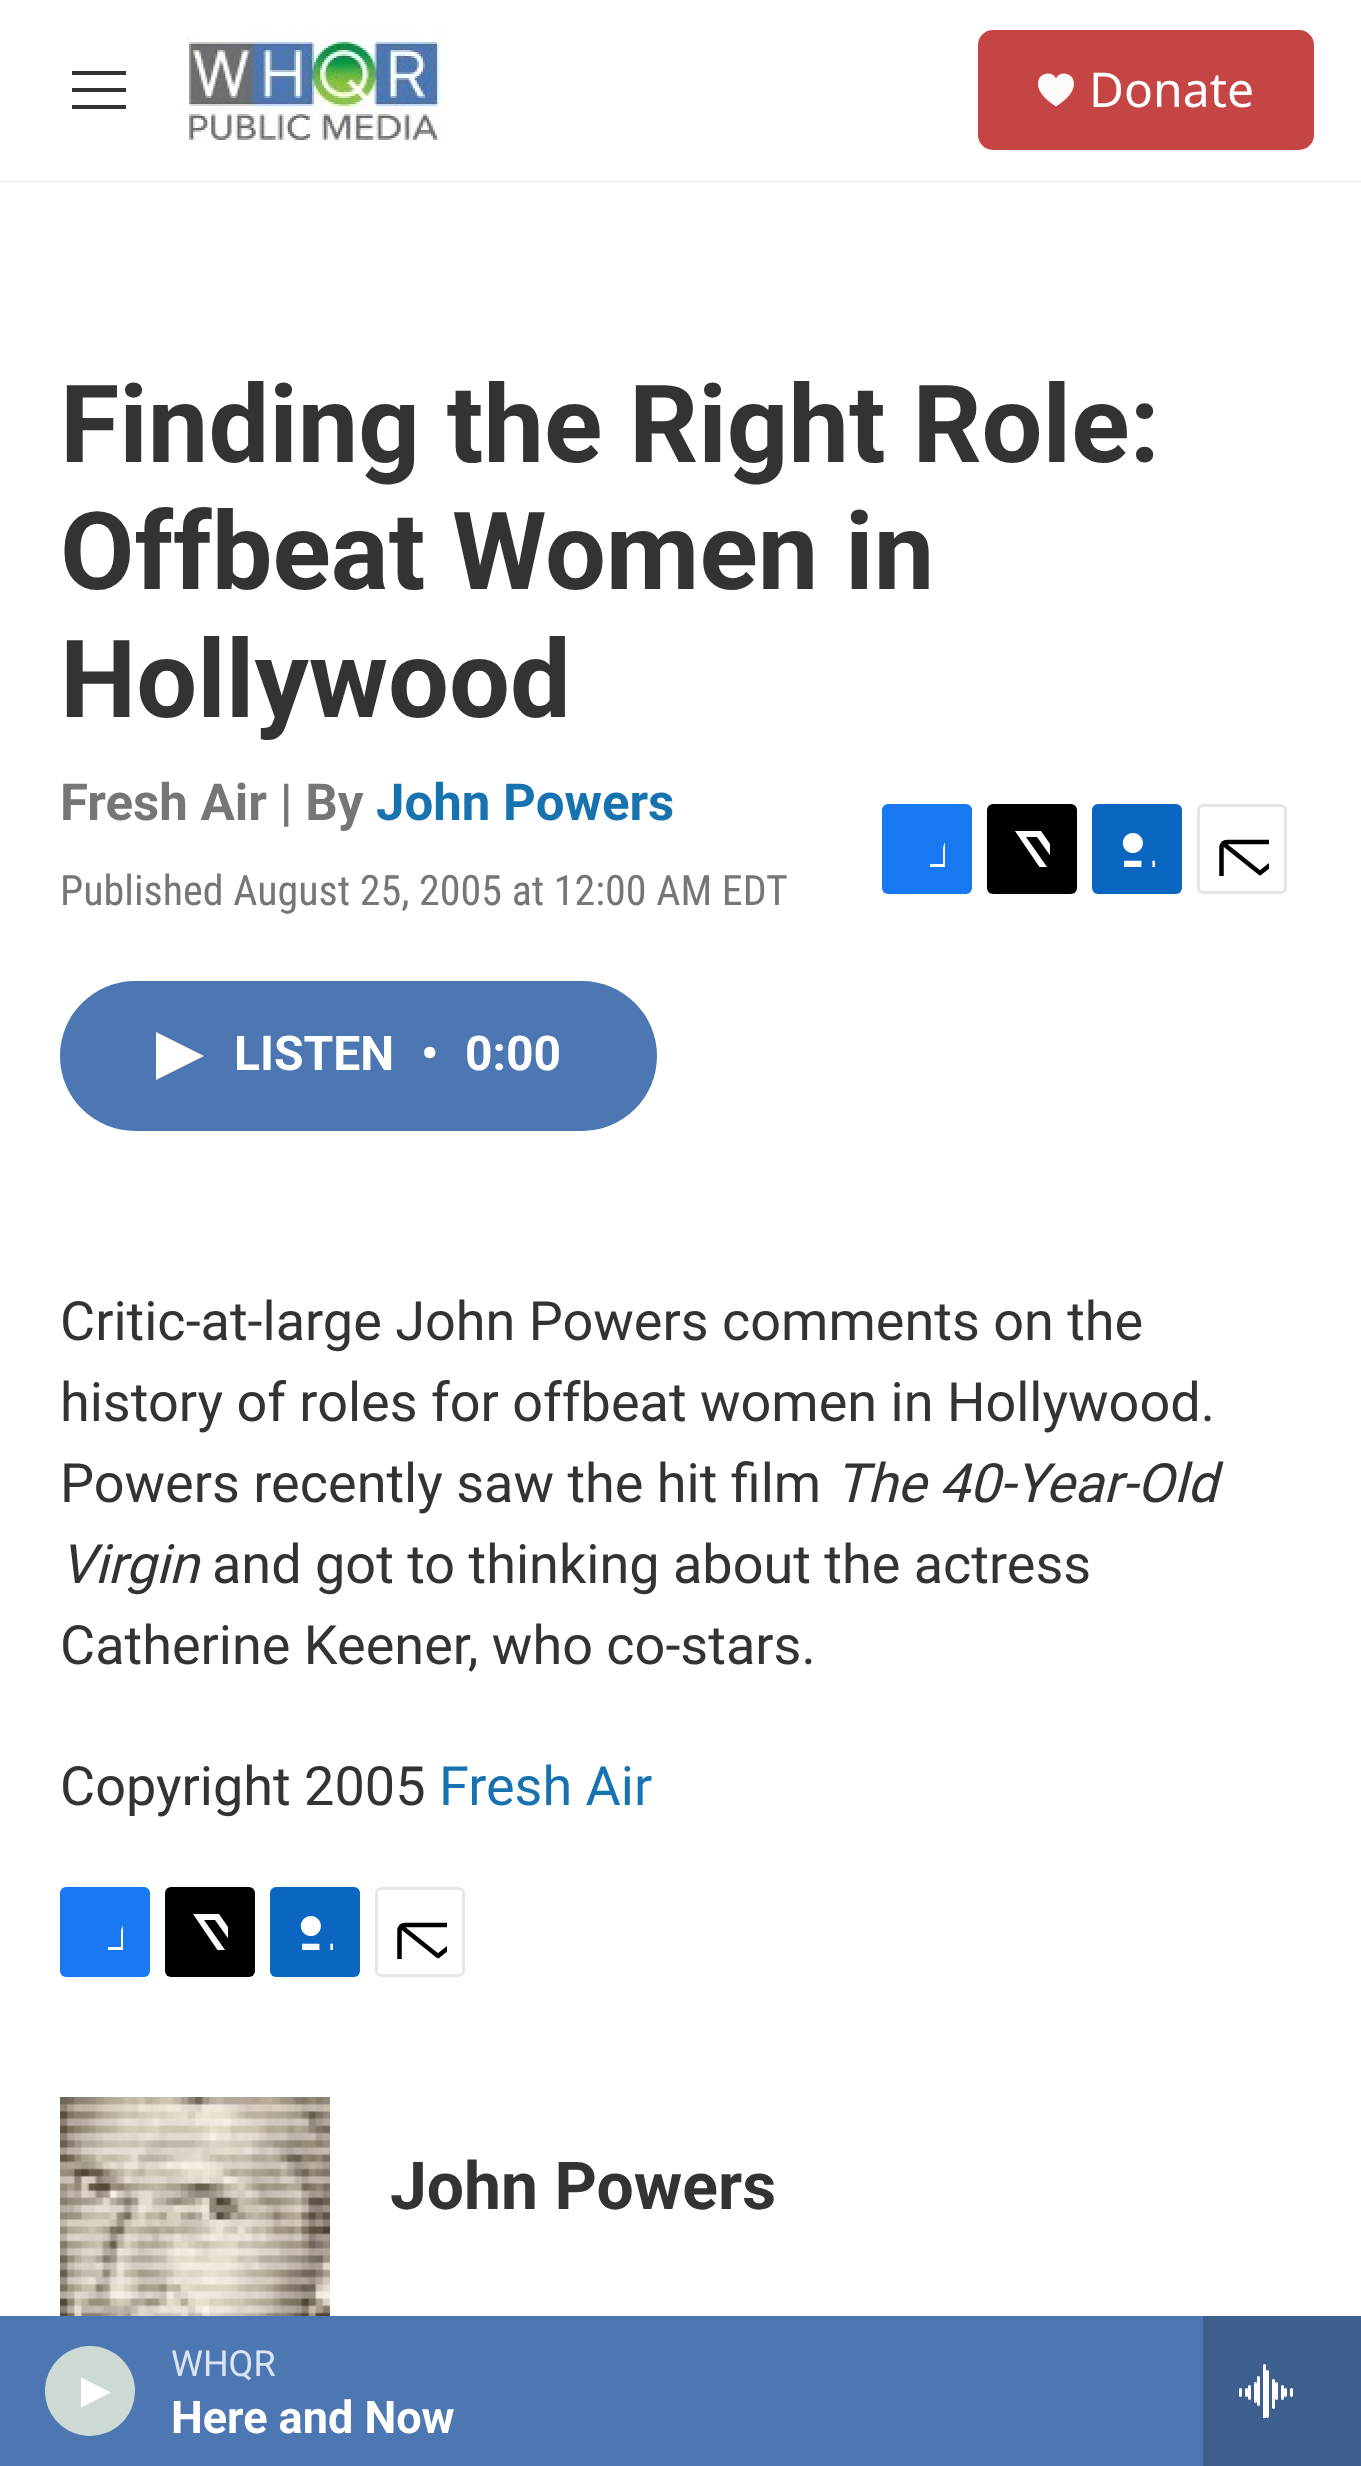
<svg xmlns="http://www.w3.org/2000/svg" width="1361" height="2466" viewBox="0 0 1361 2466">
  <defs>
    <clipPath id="clip1"><rect x="909" y="831" width="36" height="36"/></clipPath>
    <clipPath id="clip2"><rect x="1014" y="831" width="36" height="36"/></clipPath>
    <clipPath id="clip3"><rect x="1215" y="822" width="54" height="54"/></clipPath>
    <clipPath id="clip4"><rect x="87" y="1914" width="36" height="36"/></clipPath>
    <clipPath id="clip5"><rect x="192" y="1914" width="36" height="36"/></clipPath>
    <clipPath id="clip6"><rect x="393" y="1905" width="54" height="54"/></clipPath>
  </defs>
  <rect width="100%" height="100%" fill="#ffffff"/>
  <rect x="0" y="180" width="1361" height="3" fill="#f5f5f5"/>
  <path d="M72 92V88H126V92ZM72 75V71H126V75ZM72 109V105H126V109Z" fill="#333333" fill-rule="evenodd"/>
  <image x="183" y="30" width="264" height="112" href="img1.png"/>
  <rect x="978" y="30" width="336" height="120" rx="15" fill="#c54444"/>
  <path d="M1056 78.5C1053 70.5 1038 72 1038 84C1038 90 1042.5 98 1056 106.5C1069.5 98 1074 90 1074 84C1074 72 1059 70.5 1056 78.5Z" fill="#fffbfb"/>
  <text x="1089" y="107" font-family="Noto Sans" font-size="48" fill="#ffffff">Donate</text>
  <rect x="0" y="2316" width="1203" height="150" fill="#4d77b2"/>
  <circle cx="90" cy="2391" r="45" fill="#cdd9d3"/>
  <path d="M81 2377.5L111 2392.5L81 2407.5Z" fill="#ffffff"/>
  <text x="171" y="2376" font-family="Roboto" font-size="36" fill="#dbe4f0">WHQR</text>
  <text x="171" y="2433" font-family="'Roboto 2'" font-size="45" font-weight="bold" fill="#ffffff">Here and Now</text>
  <rect x="1203" y="2316" width="158" height="150" fill="#3e5f8e"/>
  <image x="1239" y="2364" width="54" height="54" href="img2.png"/>
  <text x="60" y="462" font-family="Roboto" font-size="108" font-weight="bold" fill="#333333">Finding the Right Role:</text>
  <text x="60" y="589" font-family="Roboto" font-size="108" font-weight="bold" fill="#333333">Offbeat Women in</text>
  <text x="60" y="717" font-family="Roboto" font-size="108" font-weight="bold" fill="#333333">Hollywood</text>
  <text x="60" y="820" font-family="Roboto" font-size="51" font-weight="bold" fill="#767676">Fresh Air | By</text>
  <text x="376" y="820" font-family="Roboto" font-size="51" font-weight="bold" fill="#1772b0">John Powers</text>
  <text x="60" y="905" font-family="Roboto Condensed" font-size="42" fill="#767676">Published August 25, 2005 at 12:00 AM EDT</text>
  <rect x="882" y="804" width="90" height="90" rx="6" fill="#1778f2"/>
  <g clip-path="url(#clip1)">
    <path d="M959 894H943V879H930V864H943V848C946 833 960 831 972 833V846C956 846 959 851 959 864H972V872L971 879H959Z" fill="#ffffff"/>
  </g>
  <rect x="987" y="804" width="90" height="90" rx="6" fill="#000000"/>
  <g clip-path="url(#clip2)">
    <path d="M1067 869L1077 883C1077 886 1078 889 1076 892L1037 837H1026L1066 894H1058L1053 886L1046 894H1038L1049 881L1015 831H1041L1064 864L1077 849V857Z" fill="#ffffff"/>
  </g>
  <rect x="1092" y="804" width="90" height="90" rx="6" fill="#0a66c1"/>
  <image x="1122" y="833" width="33" height="34" href="img3.png"/>
  <rect x="1198.5" y="805.5" width="87" height="87" rx="4.5" fill="none" stroke="#e6e6e6" stroke-width="3"/>
  <g clip-path="url(#clip3)">
    <path d="M1298.5 888C1298.5 891 1296 893.5 1293 893.5H1227C1224 893.5 1221.5 891 1221.5 888V847.5C1221.5 844.5 1224 842 1227 842H1293C1296 842 1298.5 844.5 1298.5 847.5ZM1297 843.5L1260 873L1223 843.5" fill="none" stroke="#000000" stroke-width="4.5" stroke-linecap="round" stroke-linejoin="round"/>
  </g>
  <rect x="60" y="981" width="597" height="150" rx="75" fill="#4d77b2"/>
  <path d="M156 1032L204 1056L156 1080Z" fill="#ffffff"/>
  <text x="234" y="1070" font-family="'Roboto 2'" font-size="48" font-weight="bold" fill="#ffffff">LISTEN</text>
  <text x="421" y="1070" font-family="'Roboto 2'" font-size="48" font-weight="bold" fill="#ffffff">•</text>
  <text x="465" y="1070" font-family="'Roboto 2'" font-size="48" font-weight="bold" fill="#ffffff">0:00</text>
  <text x="60" y="1340" font-family="Roboto" font-size="54" fill="#333333">Critic-at-large John Powers comments on the</text>
  <text x="60" y="1421" font-family="Roboto" font-size="54" fill="#333333">history of roles for offbeat women in Hollywood.</text>
  <text x="60" y="1502" font-family="Roboto" font-size="54" fill="#333333">Powers recently saw the hit film</text>
  <text x="835" y="1502" font-family="Roboto" font-size="54" font-style="italic" fill="#333333">The 40-Year-Old</text>
  <text x="60" y="1583" font-family="Roboto" font-size="54" font-style="italic" fill="#333333">Virgin</text>
  <text x="212" y="1583" font-family="Roboto" font-size="54" fill="#333333">and got to thinking about the actress</text>
  <text x="60" y="1664" font-family="Roboto" font-size="54" fill="#333333">Catherine Keener, who co-stars.</text>
  <text x="60" y="1805" font-family="Roboto" font-size="54" fill="#333333">Copyright 2005</text>
  <text x="439" y="1805" font-family="Roboto" font-size="54" fill="#1772b0">Fresh Air</text>
  <rect x="60" y="1887" width="90" height="90" rx="6" fill="#1778f2"/>
  <g clip-path="url(#clip4)">
    <path d="M137 1977H121V1962H108V1947H121V1931C124 1916 138 1914 150 1916V1929C134 1929 137 1934 137 1947H150V1954L149 1962H137Z" fill="#ffffff"/>
  </g>
  <rect x="165" y="1887" width="90" height="90" rx="6" fill="#000000"/>
  <g clip-path="url(#clip5)">
    <path d="M245 1952L255 1966C255 1969 256 1972 254 1975L215 1920H204L244 1977H236L231 1969L224 1977H216L227 1964L193 1914H219L242 1947L255 1932V1940Z" fill="#ffffff"/>
  </g>
  <rect x="270" y="1887" width="90" height="90" rx="6" fill="#0a66c1"/>
  <image x="300" y="1916" width="33" height="34" href="img3.png"/>
  <rect x="376.5" y="1888.5" width="87" height="87" rx="4.5" fill="none" stroke="#e6e6e6" stroke-width="3"/>
  <g clip-path="url(#clip6)">
    <path d="M476.5 1971C476.5 1974 474 1976.5 471 1976.5H405C402 1976.5 399.5 1974 399.5 1971V1930.5C399.5 1927.5 402 1925 405 1925H471C474 1925 476.5 1927.5 476.5 1930.5ZM475 1926.5L438 1956L401 1926.5" fill="none" stroke="#000000" stroke-width="4.5" stroke-linecap="round" stroke-linejoin="round"/>
  </g>
  <image x="60" y="2097" width="270" height="219" href="img4.png"/>
  <text x="390" y="2209" font-family="Roboto" font-size="66" font-weight="bold" fill="#333333">John Powers</text>
</svg>
